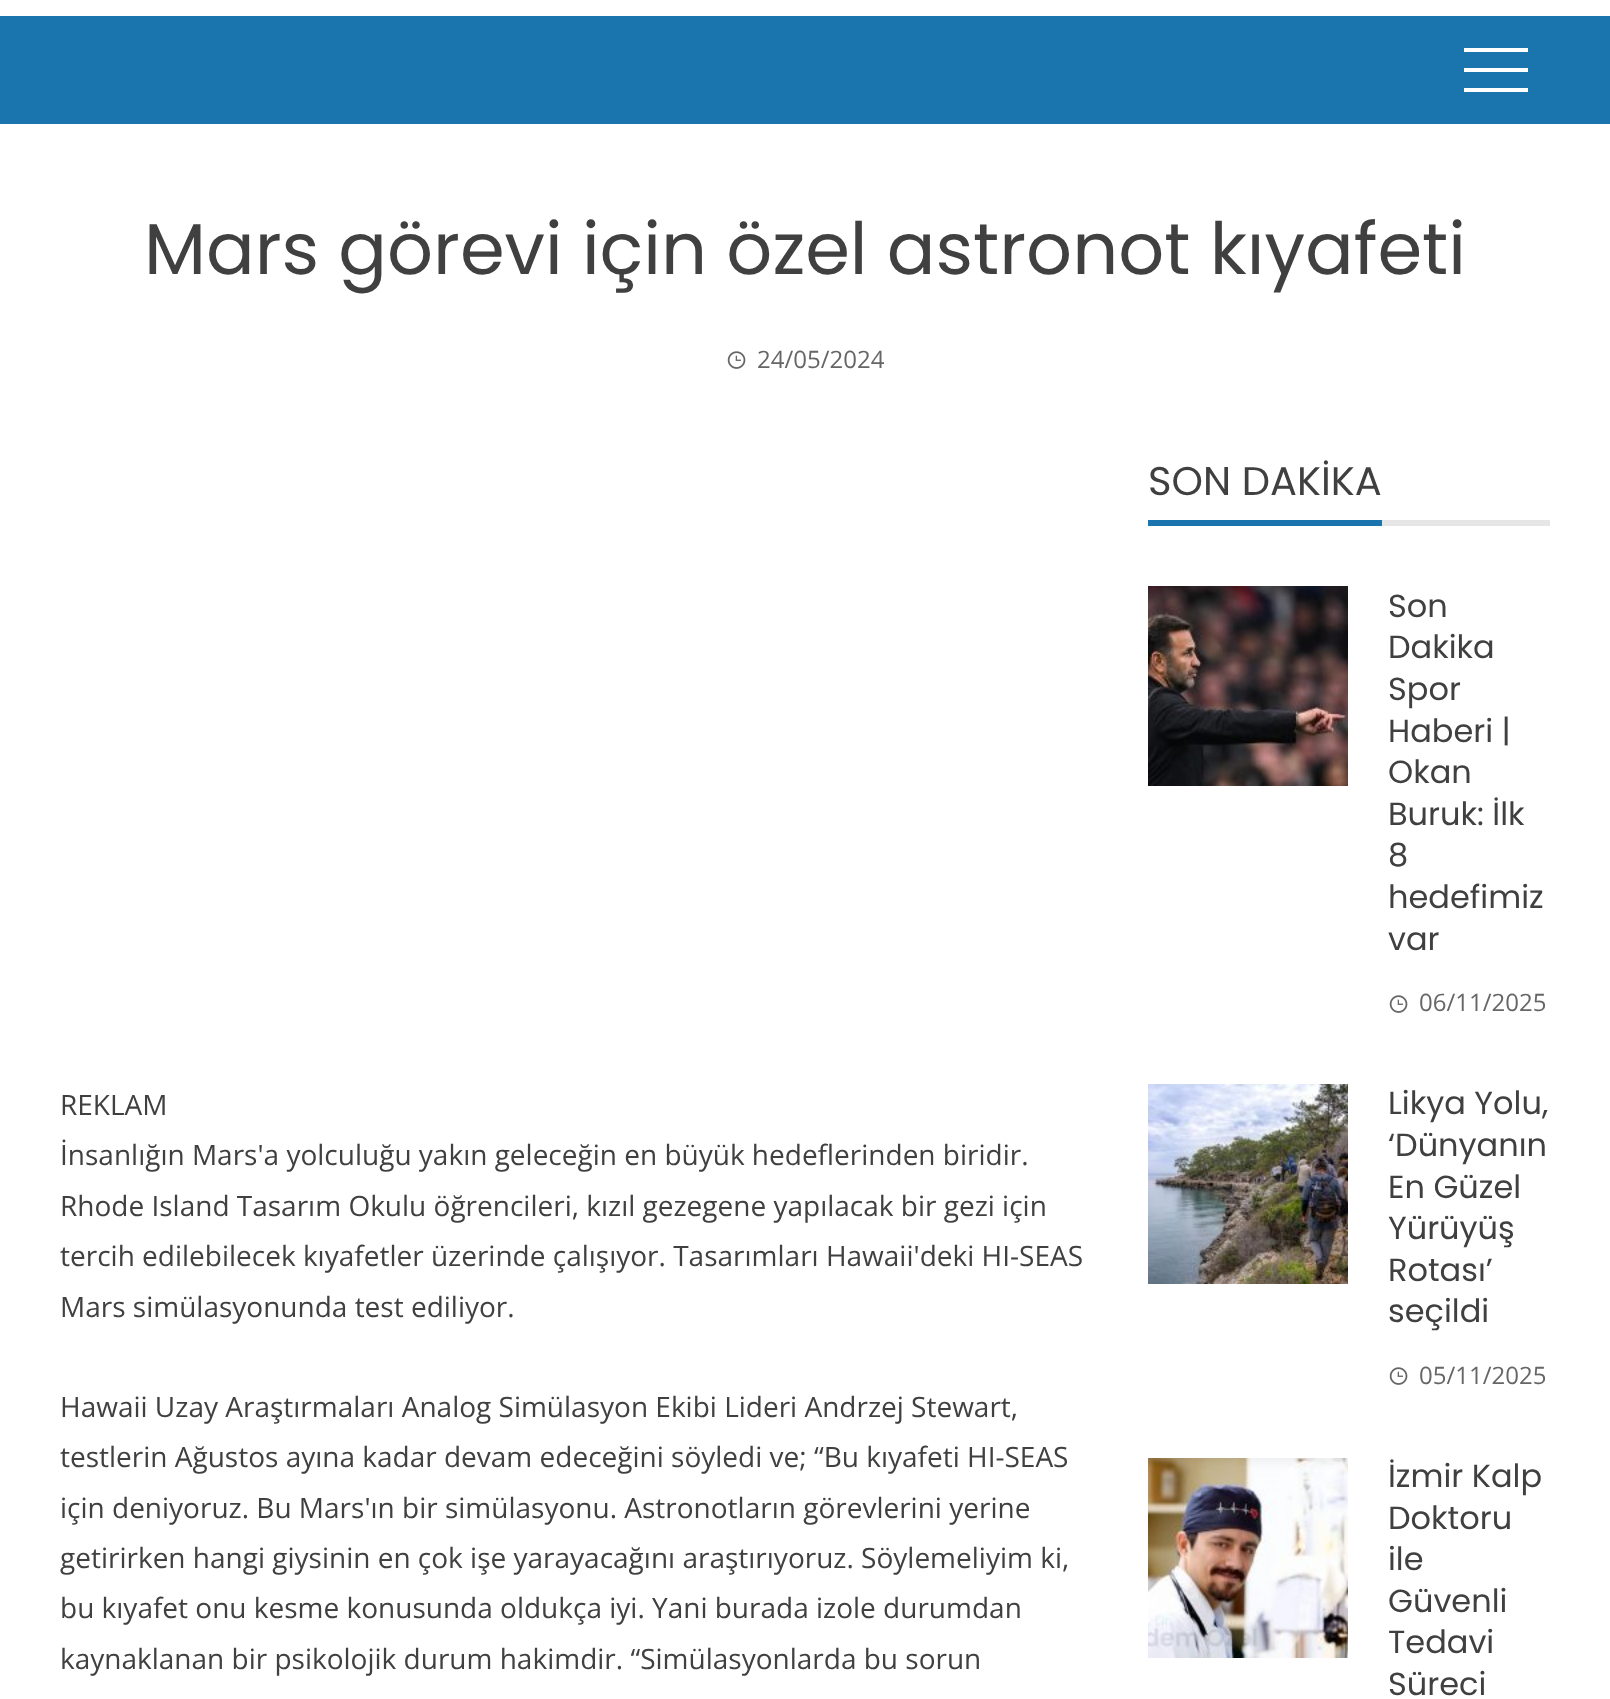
<svg xmlns="http://www.w3.org/2000/svg" width="1610" height="1699" viewBox="0 0 1610 1699">
  <rect width="100%" height="100%" fill="#ffffff"/>
  <rect x="0" y="16" width="1610" height="108" fill="#1a74ad"/>
  <rect x="1464" y="48" width="64" height="4" fill="#ffffff"/>
  <rect x="1464" y="88" width="64" height="4" fill="#ffffff"/>
  <rect x="1464" y="68" width="64" height="4" fill="#ffffff"/>
  <text x="144" y="274" font-family="Poppins" font-size="72" fill="#404040">Mars görevi için özel astronot kıyafeti</text>
  <image x="727" y="351" width="19" height="18" href="img1.png"/>
  <text x="757" y="368" font-family="Open Sans" font-size="24" fill="#666666">24/05/2024</text>
  <text x="60" y="1115" font-family="Open Sans" font-size="28" fill="#404040">REKLAM</text>
  <text x="60" y="1165" font-family="Open Sans" font-size="28" fill="#404040">İnsanlığın Mars'a yolculuğu yakın geleceğin en büyük hedeflerinden biridir.</text>
  <text x="60" y="1216" font-family="Open Sans" font-size="28" fill="#404040">Rhode Island Tasarım Okulu öğrencileri, kızıl gezegene yapılacak bir gezi için</text>
  <text x="60" y="1266" font-family="Open Sans" font-size="28" fill="#404040">tercih edilebilecek kıyafetler üzerinde çalışıyor. Tasarımları Hawaii'deki HI-SEAS</text>
  <text x="60" y="1317" font-family="Open Sans" font-size="28" fill="#404040">Mars simülasyonunda test ediliyor.</text>
  <text x="60" y="1417" font-family="Open Sans" font-size="28" fill="#404040">Hawaii Uzay Araştırmaları Analog Simülasyon Ekibi Lideri Andrzej Stewart,</text>
  <text x="60" y="1467" font-family="Open Sans" font-size="28" fill="#404040">testlerin Ağustos ayına kadar devam edeceğini söyledi ve; “Bu kıyafeti HI-SEAS</text>
  <text x="60" y="1518" font-family="Open Sans" font-size="28" fill="#404040">için deniyoruz. Bu Mars'ın bir simülasyonu. Astronotların görevlerini yerine</text>
  <text x="60" y="1568" font-family="Open Sans" font-size="28" fill="#404040">getirirken hangi giysinin en çok işe yarayacağını araştırıyoruz. Söylemeliyim ki,</text>
  <text x="60" y="1618" font-family="Open Sans" font-size="28" fill="#404040">bu kıyafet onu kesme konusunda oldukça iyi. Yani burada izole durumdan</text>
  <text x="60" y="1669" font-family="Open Sans" font-size="28" fill="#404040">kaynaklanan bir psikolojik durum hakimdir. “Simülasyonlarda bu sorun</text>
  <rect x="1382" y="520" width="168" height="6" fill="#e6e6e6"/>
  <text x="1148" y="495" font-family="Poppins" font-size="40" fill="#404040">SON DAKİKA</text>
  <rect x="1148" y="520" width="234" height="6" fill="#1a74ad"/>
  <image x="1148" y="586" width="200" height="200" href="img2.png"/>
  <text x="1388" y="617" font-family="Poppins" font-size="32" fill="#404040">Son</text>
  <text x="1388" y="658" font-family="Poppins" font-size="32" fill="#404040">Dakika</text>
  <text x="1388" y="700" font-family="Poppins" font-size="32" fill="#404040">Spor</text>
  <text x="1388" y="742" font-family="Poppins" font-size="32" fill="#404040">Haberi |</text>
  <text x="1388" y="783" font-family="Poppins" font-size="32" fill="#404040">Okan</text>
  <text x="1388" y="825" font-family="Poppins" font-size="32" fill="#404040">Buruk: İlk</text>
  <text x="1388" y="866" font-family="Poppins" font-size="32" fill="#404040">8</text>
  <text x="1388" y="908" font-family="Poppins" font-size="32" fill="#404040">hedefimiz</text>
  <text x="1388" y="950" font-family="Poppins" font-size="32" fill="#404040">var</text>
  <image x="1389" y="995" width="19" height="18" href="img1.png"/>
  <text x="1419" y="1011" font-family="Open Sans" font-size="24" fill="#666666">06/11/2025</text>
  <image x="1148" y="1084" width="200" height="200" href="img3.png"/>
  <text x="1388" y="1114" font-family="Poppins" font-size="32" fill="#404040">Likya Yolu,</text>
  <text x="1388" y="1156" font-family="Poppins" font-size="32" fill="#404040">‘Dünyanın</text>
  <text x="1388" y="1198" font-family="Poppins" font-size="32" fill="#404040">En Güzel</text>
  <text x="1388" y="1239" font-family="Poppins" font-size="32" fill="#404040">Yürüyüş</text>
  <text x="1388" y="1281" font-family="Poppins" font-size="32" fill="#404040">Rotası’</text>
  <text x="1388" y="1322" font-family="Poppins" font-size="32" fill="#404040">seçildi</text>
  <image x="1389" y="1367" width="19" height="18" href="img1.png"/>
  <text x="1419" y="1384" font-family="Open Sans" font-size="24" fill="#666666">05/11/2025</text>
  <image x="1148" y="1458" width="200" height="200" href="img4.png"/>
  <text x="1388" y="1487" font-family="Poppins" font-size="32" fill="#404040">İzmir Kalp</text>
  <text x="1388" y="1529" font-family="Poppins" font-size="32" fill="#404040">Doktoru</text>
  <text x="1388" y="1570" font-family="Poppins" font-size="32" fill="#404040">ile</text>
  <text x="1388" y="1612" font-family="Poppins" font-size="32" fill="#404040">Güvenli</text>
  <text x="1388" y="1653" font-family="Poppins" font-size="32" fill="#404040">Tedavi</text>
  <text x="1388" y="1695" font-family="Poppins" font-size="32" fill="#404040">Süreci</text>
</svg>
